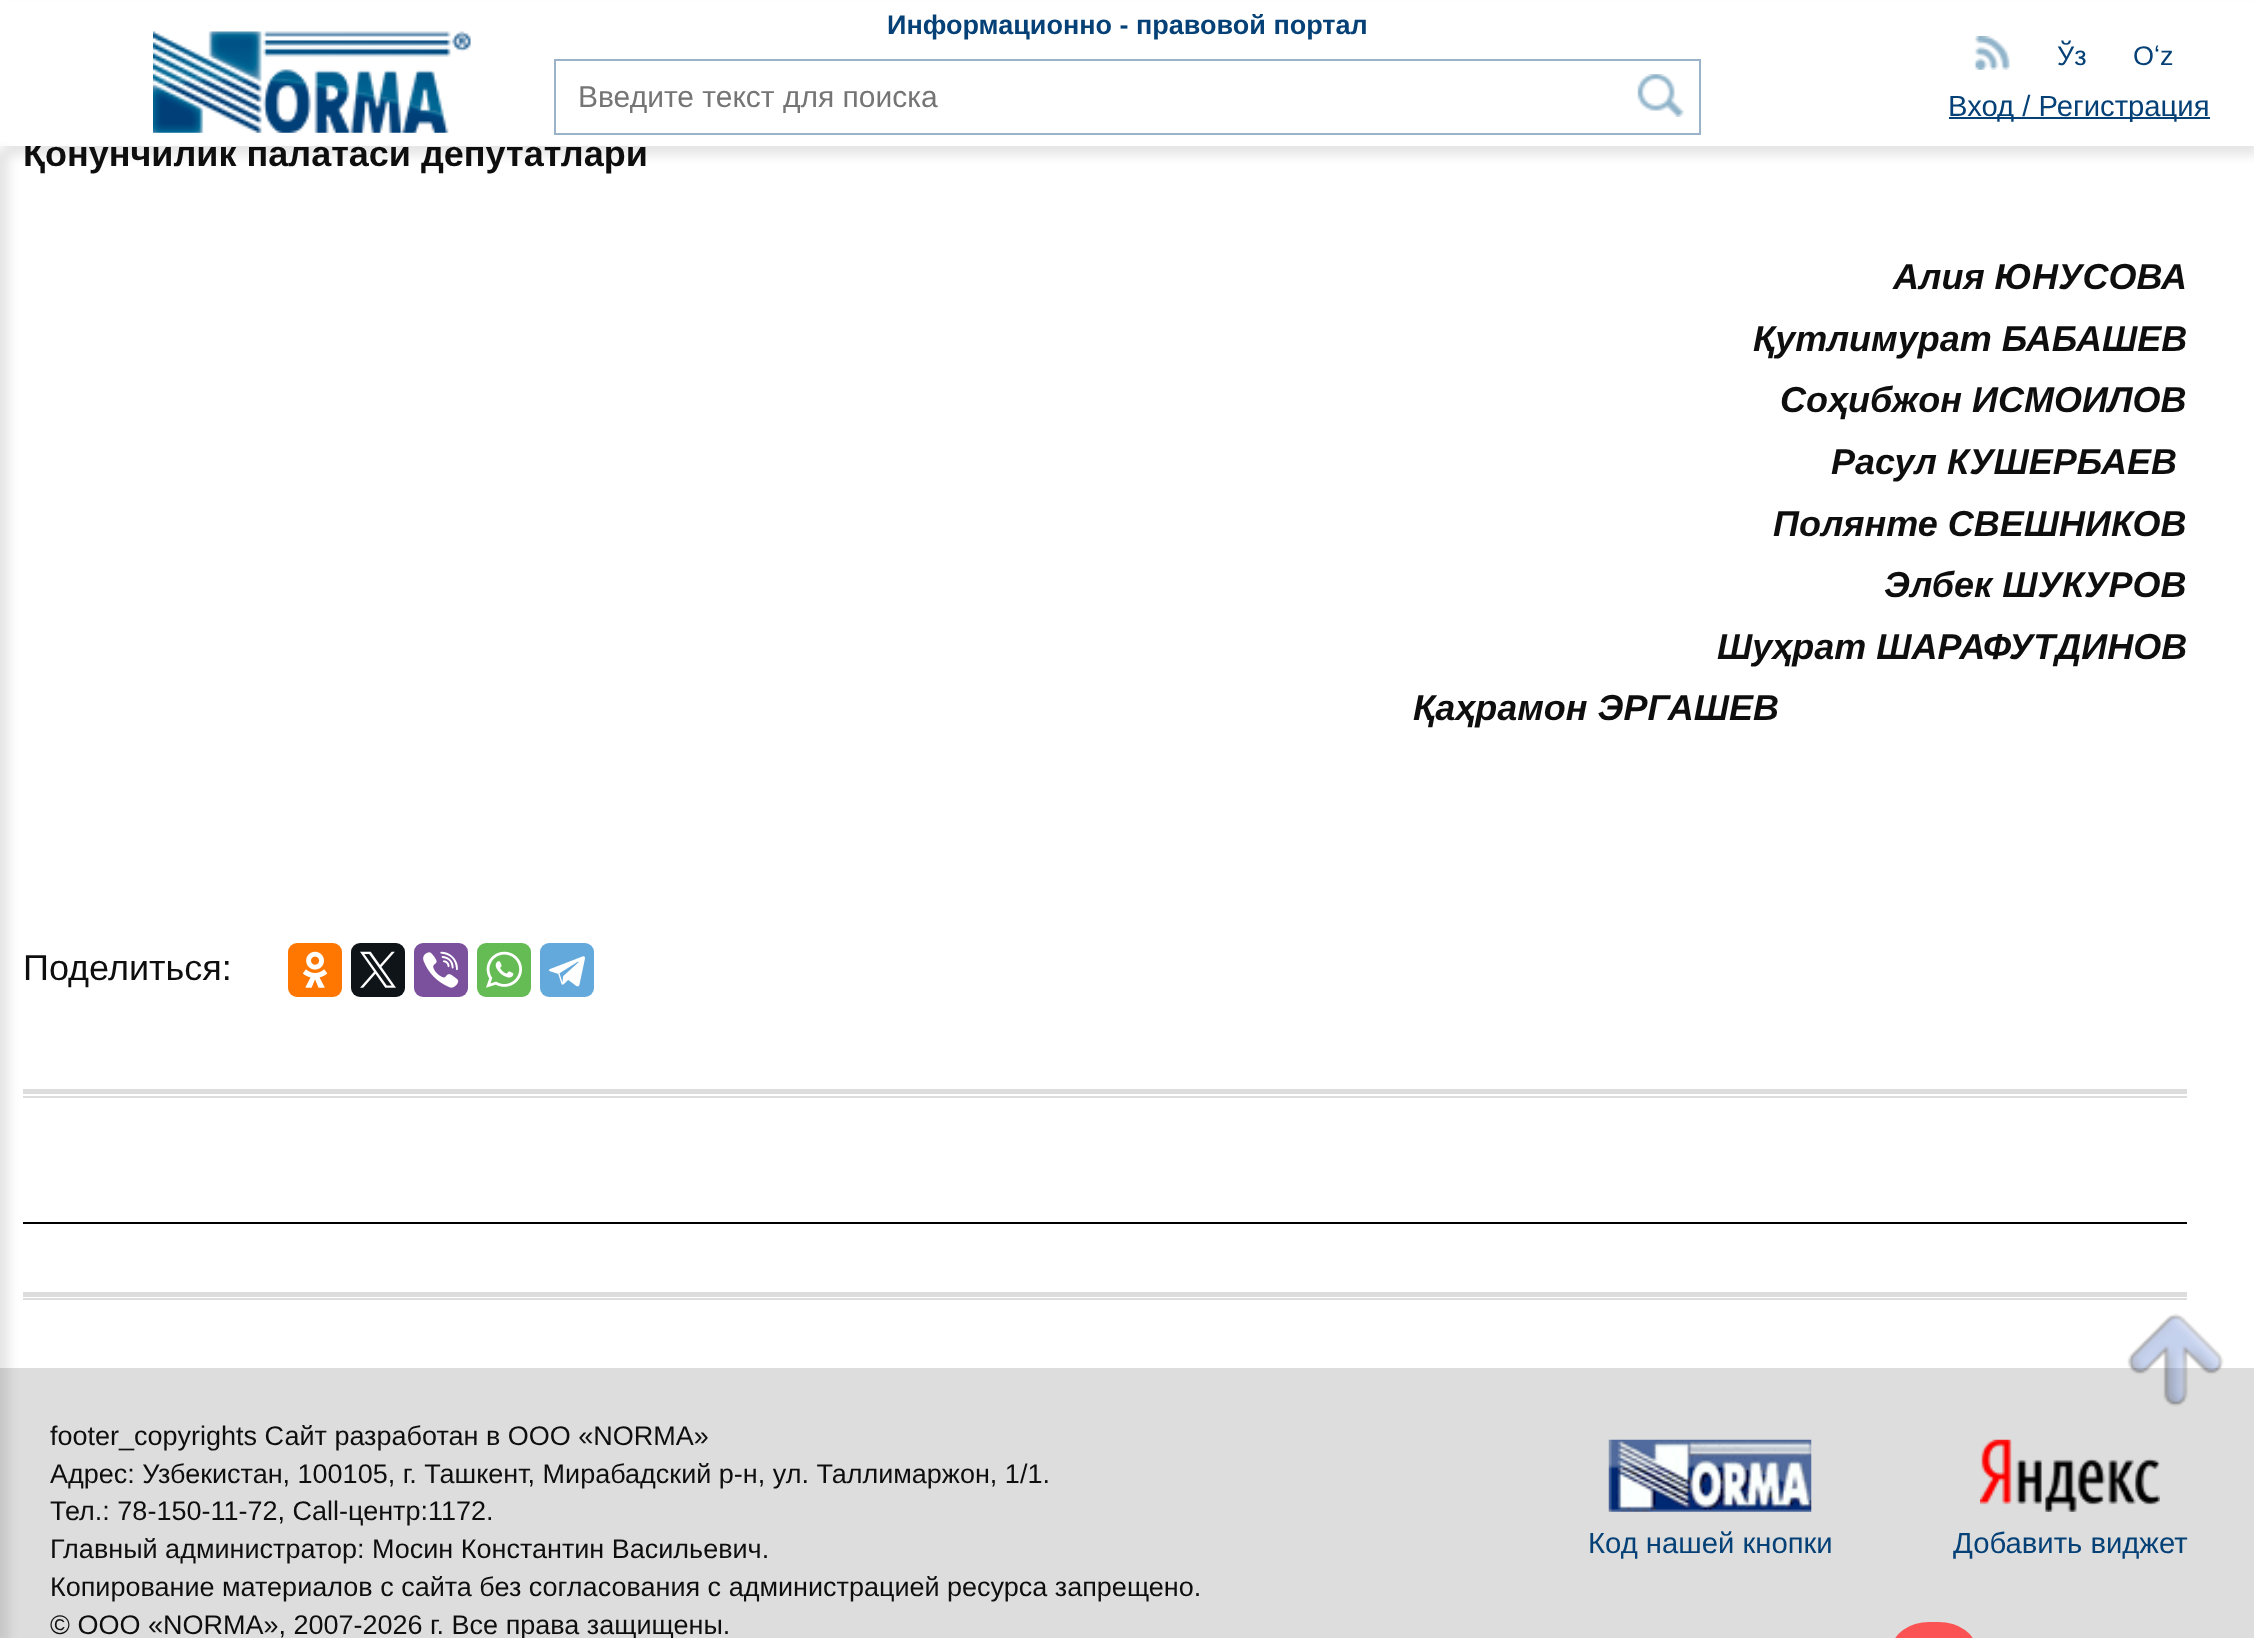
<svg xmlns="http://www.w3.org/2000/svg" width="2254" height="1638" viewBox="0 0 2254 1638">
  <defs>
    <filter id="blur1" x="-50%" y="-200%" width="200%" height="500%"><feGaussianBlur stdDeviation="5.5"/></filter>
  </defs>
  <rect width="100%" height="100%" fill="#ffffff"/>
  <rect x="5" y="9" width="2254" height="146" fill="#000000" fill-opacity="0.1" filter="url(#blur1)"/>
  <text x="23" y="166" font-family="Liberation Sans" font-size="36" font-weight="bold" fill="#0e0e0e">Қонунчилик палатаси депутатлари</text>
  <rect x="0" y="2" width="2254" height="144" fill="#ffffff"/>
  <text x="887" y="34" font-family="Liberation Sans" font-size="27" font-weight="bold" fill="#054176">Информационно - правовой портал</text>
  <image x="153" y="31" width="318" height="102" href="img1.png"/>
  <rect x="555" y="60" width="1145" height="74" fill="none" stroke="#9bb3c8" stroke-width="2"/>
  <text x="578" y="107" font-family="Liberation Sans" font-size="30" fill="#757575">Введите текст для поиска</text>
  <image x="1637" y="74" width="47" height="43" href="img2.png"/>
  <image x="1974" y="36" width="36" height="34" href="img3.png"/>
  <text x="2057" y="65" font-family="Liberation Sans" font-size="27" fill="#054176">Ўз</text>
  <text x="2133" y="65" font-family="Liberation Sans" font-size="27" fill="#054176">Oʻz</text>
  <rect x="1949" y="117" width="261" height="2" fill="#054176"/>
  <text x="1948" y="116" font-family="Liberation Sans" font-size="29.25" fill="#054176">Вход / Регистрация</text>
  <rect x="23" y="1298" width="2164" height="2" fill="#dddddd"/>
  <rect x="23" y="1096" width="2164" height="2" fill="#dddddd"/>
  <rect x="23" y="1089" width="2164" height="5" fill="#dddddd"/>
  <rect x="23" y="1222" width="2164" height="2" fill="#000000"/>
  <rect x="23" y="1292" width="2164" height="5" fill="#dddddd"/>
  <rect x="0" y="1368" width="2254" height="270" fill="#dddddd"/>
  <rect x="-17" y="151" width="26" height="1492" fill="#000000" fill-opacity="0.1" filter="url(#blur1)"/>
  <text x="1893" y="289" font-family="Liberation Sans" font-size="36" font-weight="bold" font-style="italic" fill="#0e0e0e">Алия ЮНУСОВА</text>
  <text x="1753" y="351" font-family="Liberation Sans" font-size="36" font-weight="bold" font-style="italic" fill="#0e0e0e">Қутлимурат БАБАШЕВ</text>
  <text x="1780" y="412" font-family="Liberation Sans" font-size="36" font-weight="bold" font-style="italic" fill="#0e0e0e">Соҳибжон ИСМОИЛОВ</text>
  <text x="1831" y="474" font-family="Liberation Sans" font-size="36" font-weight="bold" font-style="italic" fill="#0e0e0e">Расул КУШЕРБАЕВ</text>
  <text x="1773" y="536" font-family="Liberation Sans" font-size="36" font-weight="bold" font-style="italic" fill="#0e0e0e">Полянте СВЕШНИКОВ</text>
  <text x="1884" y="597" font-family="Liberation Sans" font-size="36" font-weight="bold" font-style="italic" fill="#0e0e0e">Элбек ШУКУРОВ</text>
  <text x="1717" y="659" font-family="Liberation Sans" font-size="36" font-weight="bold" font-style="italic" fill="#0e0e0e">Шуҳрат ШАРАФУТДИНОВ</text>
  <text x="1413" y="720" font-family="Liberation Sans" font-size="36" font-weight="bold" font-style="italic" fill="#0e0e0e">Қаҳрамон ЭРГАШЕВ</text>
  <text x="23" y="980" font-family="Liberation Sans" font-size="36" fill="#0e0e0e">Поделиться:</text>
  <rect x="288" y="943" width="54" height="54" rx="9" fill="#ff7700"/>
  <image x="303" y="951" width="25" height="37" href="img4.png"/>
  <rect x="351" y="943" width="54" height="54" rx="9" fill="#0f1419"/>
  <image x="360" y="951" width="36" height="37" href="img5.png"/>
  <rect x="414" y="943" width="54" height="54" rx="9" fill="#7b519d"/>
  <image x="423" y="951" width="36" height="37" href="img6.png"/>
  <rect x="477" y="943" width="54" height="54" rx="9" fill="#65bc54"/>
  <image x="486" y="951" width="36" height="37" href="img7.png"/>
  <rect x="540" y="943" width="54" height="54" rx="9" fill="#64a9dc"/>
  <image x="549" y="956" width="36" height="31" href="img8.png"/>
  <text x="50" y="1445" font-family="Liberation Sans" font-size="27" fill="#0e0e0e">footer_copyrights Сайт разработан в ООО «NORMA»</text>
  <text x="50" y="1483" font-family="Liberation Sans" font-size="27" fill="#0e0e0e">Адрес: Узбекистан, 100105, г. Ташкент, Мирабадский р-н, ул. Таллимаржон, 1/1.</text>
  <text x="50" y="1520" font-family="Liberation Sans" font-size="27" fill="#0e0e0e">Тел.: 78-150-11-72, Call-центр:1172.</text>
  <text x="50" y="1558" font-family="Liberation Sans" font-size="27" fill="#0e0e0e">Главный администратор: Мосин Константин Васильевич.</text>
  <text x="50" y="1596" font-family="Liberation Sans" font-size="27" fill="#0e0e0e">Копирование материалов с сайта без согласования с администрацией ресурса запрещено.</text>
  <text x="50" y="1634" font-family="Liberation Sans" font-size="27" fill="#0e0e0e">© ООО «NORMA», 2007-2026 г. Все права защищены.</text>
  <image x="1608" y="1439" width="204" height="73" href="img9.png"/>
  <text x="1588" y="1553" font-family="Liberation Sans" font-size="29.25" fill="#054176">Код нашей кнопки</text>
  <image x="1980" y="1439" width="180" height="73" href="img10.png"/>
  <text x="1953" y="1553" font-family="Liberation Sans" font-size="29.25" fill="#054176">Добавить виджет</text>
  <rect x="1892" y="1622" width="84" height="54" rx="37.5" fill="#fb5353"/>
  <image x="2127" y="1313" width="97" height="94" href="img11.png"/>
</svg>
